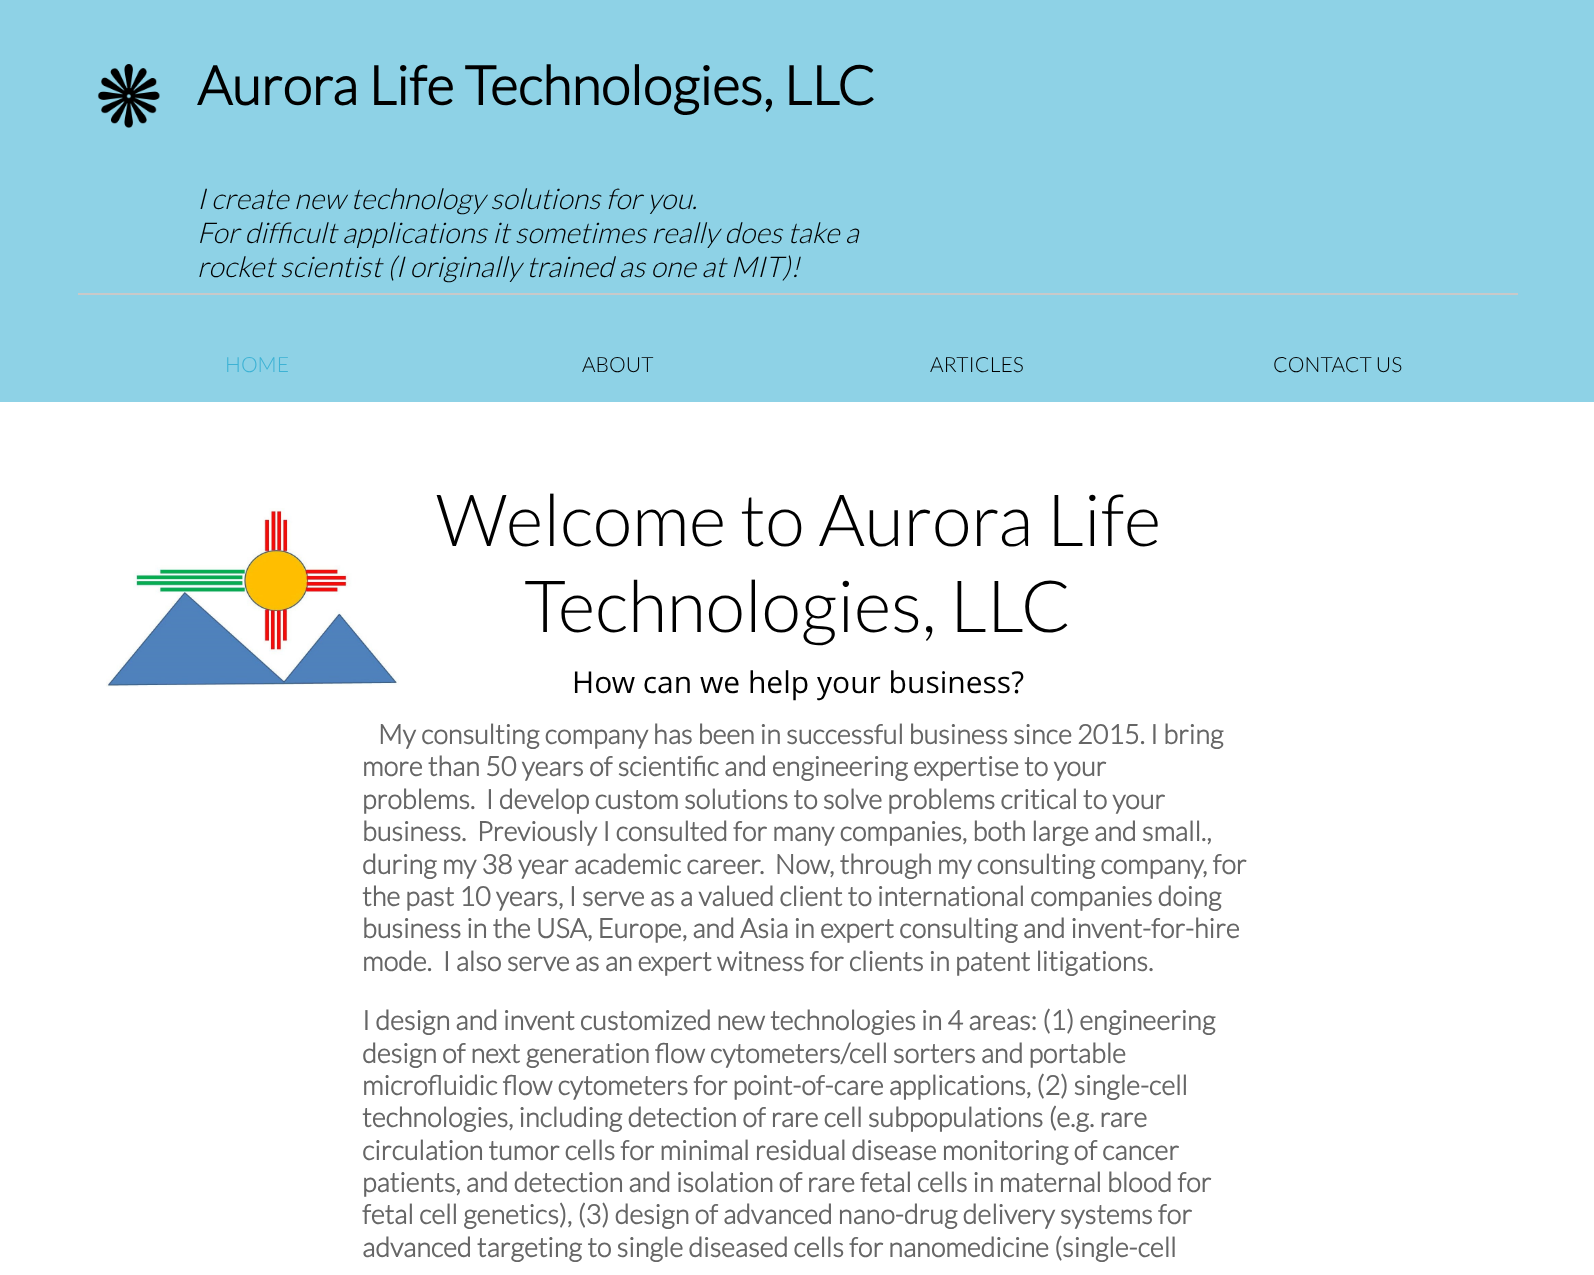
<svg xmlns="http://www.w3.org/2000/svg" width="1594" height="1275" viewBox="0 0 1594 1275">
  <rect width="100%" height="100%" fill="#ffffff"/>
  <rect x="0" y="0" width="1594" height="402" fill="#8ed2e6"/>
  <image x="97" y="64" width="63" height="64" href="img1.png"/>
  <text x="197" y="105" font-family="Lato" font-size="54" font-weight="bold" fill="#000000">Aurora Life Technologies, LLC</text>
  <text x="197" y="209" font-family="Lato" font-size="28.5" font-weight="300" font-style="italic" fill="#000000">I create new technology solutions for you.</text>
  <text x="197" y="243" font-family="Lato" font-size="28.5" font-weight="300" font-style="italic" fill="#000000">For difficult applications it sometimes really does take a</text>
  <text x="197" y="277" font-family="Lato" font-size="28.5" font-weight="300" font-style="italic" fill="#000000">rocket scientist (I originally trained as one at MIT)!</text>
  <rect x="78" y="293" width="1440" height="2" fill="#c9c9c9"/>
  <text x="225" y="372" font-family="Lato" font-size="21" font-weight="300" fill="#3db2d4">HOME</text>
  <text x="582" y="372" font-family="Lato" font-size="21" font-weight="300" fill="#000000">ABOUT</text>
  <text x="930" y="372" font-family="Lato" font-size="21" font-weight="300" fill="#000000">ARTICLES</text>
  <text x="1273" y="372" font-family="Lato" font-size="21" font-weight="300" fill="#000000">CONTACT US</text>
  <image x="106" y="508" width="293" height="179" href="img2.png"/>
  <text x="436" y="546" font-family="Lato" font-size="72" font-weight="300" fill="#000000">Welcome to Aurora Life</text>
  <text x="524" y="632" font-family="Lato" font-size="72" font-weight="300" fill="#000000">Technologies, LLC</text>
  <text x="572" y="693" font-family="Open Sans" font-size="30" fill="#000000">How can we help your business?</text>
  <text x="378" y="744" font-family="Lato" font-size="27" font-weight="bold" fill="#666666">My consulting company has been in successful business since 2015. I bring</text>
  <text x="362" y="776" font-family="Lato" font-size="27" font-weight="bold" fill="#666666">more than 50 years of scientific and engineering expertise to your</text>
  <text x="362" y="809" font-family="Lato" font-size="27" font-weight="bold" fill="#666666" xml:space="preserve">problems.  I develop custom solutions to solve problems critical to your</text>
  <text x="362" y="841" font-family="Lato" font-size="27" font-weight="bold" fill="#666666" xml:space="preserve">business.  Previously I consulted for many companies, both large and small.,</text>
  <text x="362" y="874" font-family="Lato" font-size="27" font-weight="bold" fill="#666666" xml:space="preserve">during my 38 year academic career.  Now, through my consulting company, for</text>
  <text x="362" y="906" font-family="Lato" font-size="27" font-weight="bold" fill="#666666">the past 10 years, I serve as a valued client to international companies doing</text>
  <text x="362" y="938" font-family="Lato" font-size="27" font-weight="bold" fill="#666666">business in the USA, Europe, and Asia in expert consulting and invent-for-hire</text>
  <text x="362" y="971" font-family="Lato" font-size="27" font-weight="bold" fill="#666666" xml:space="preserve">mode.  I also serve as an expert witness for clients in patent litigations.</text>
  <text x="362" y="1030" font-family="Lato" font-size="27" font-weight="bold" fill="#666666">I design and invent customized new technologies in 4 areas: (1) engineering</text>
  <text x="362" y="1063" font-family="Lato" font-size="27" font-weight="bold" fill="#666666">design of next generation flow cytometers/cell sorters and portable</text>
  <text x="362" y="1095" font-family="Lato" font-size="27" font-weight="bold" fill="#666666">microfluidic flow cytometers for point-of-care applications, (2) single-cell</text>
  <text x="362" y="1127" font-family="Lato" font-size="27" font-weight="bold" fill="#666666">technologies, including detection of rare cell subpopulations (e.g. rare</text>
  <text x="362" y="1160" font-family="Lato" font-size="27" font-weight="bold" fill="#666666">circulation tumor cells for minimal residual disease monitoring of cancer</text>
  <text x="362" y="1192" font-family="Lato" font-size="27" font-weight="bold" fill="#666666">patients, and detection and isolation of rare fetal cells in maternal blood for</text>
  <text x="362" y="1224" font-family="Lato" font-size="27" font-weight="bold" fill="#666666">fetal cell genetics), (3) design of advanced nano-drug delivery systems for</text>
  <text x="362" y="1257" font-family="Lato" font-size="27" font-weight="bold" fill="#666666">advanced targeting to single diseased cells for nanomedicine (single-cell</text>
</svg>
